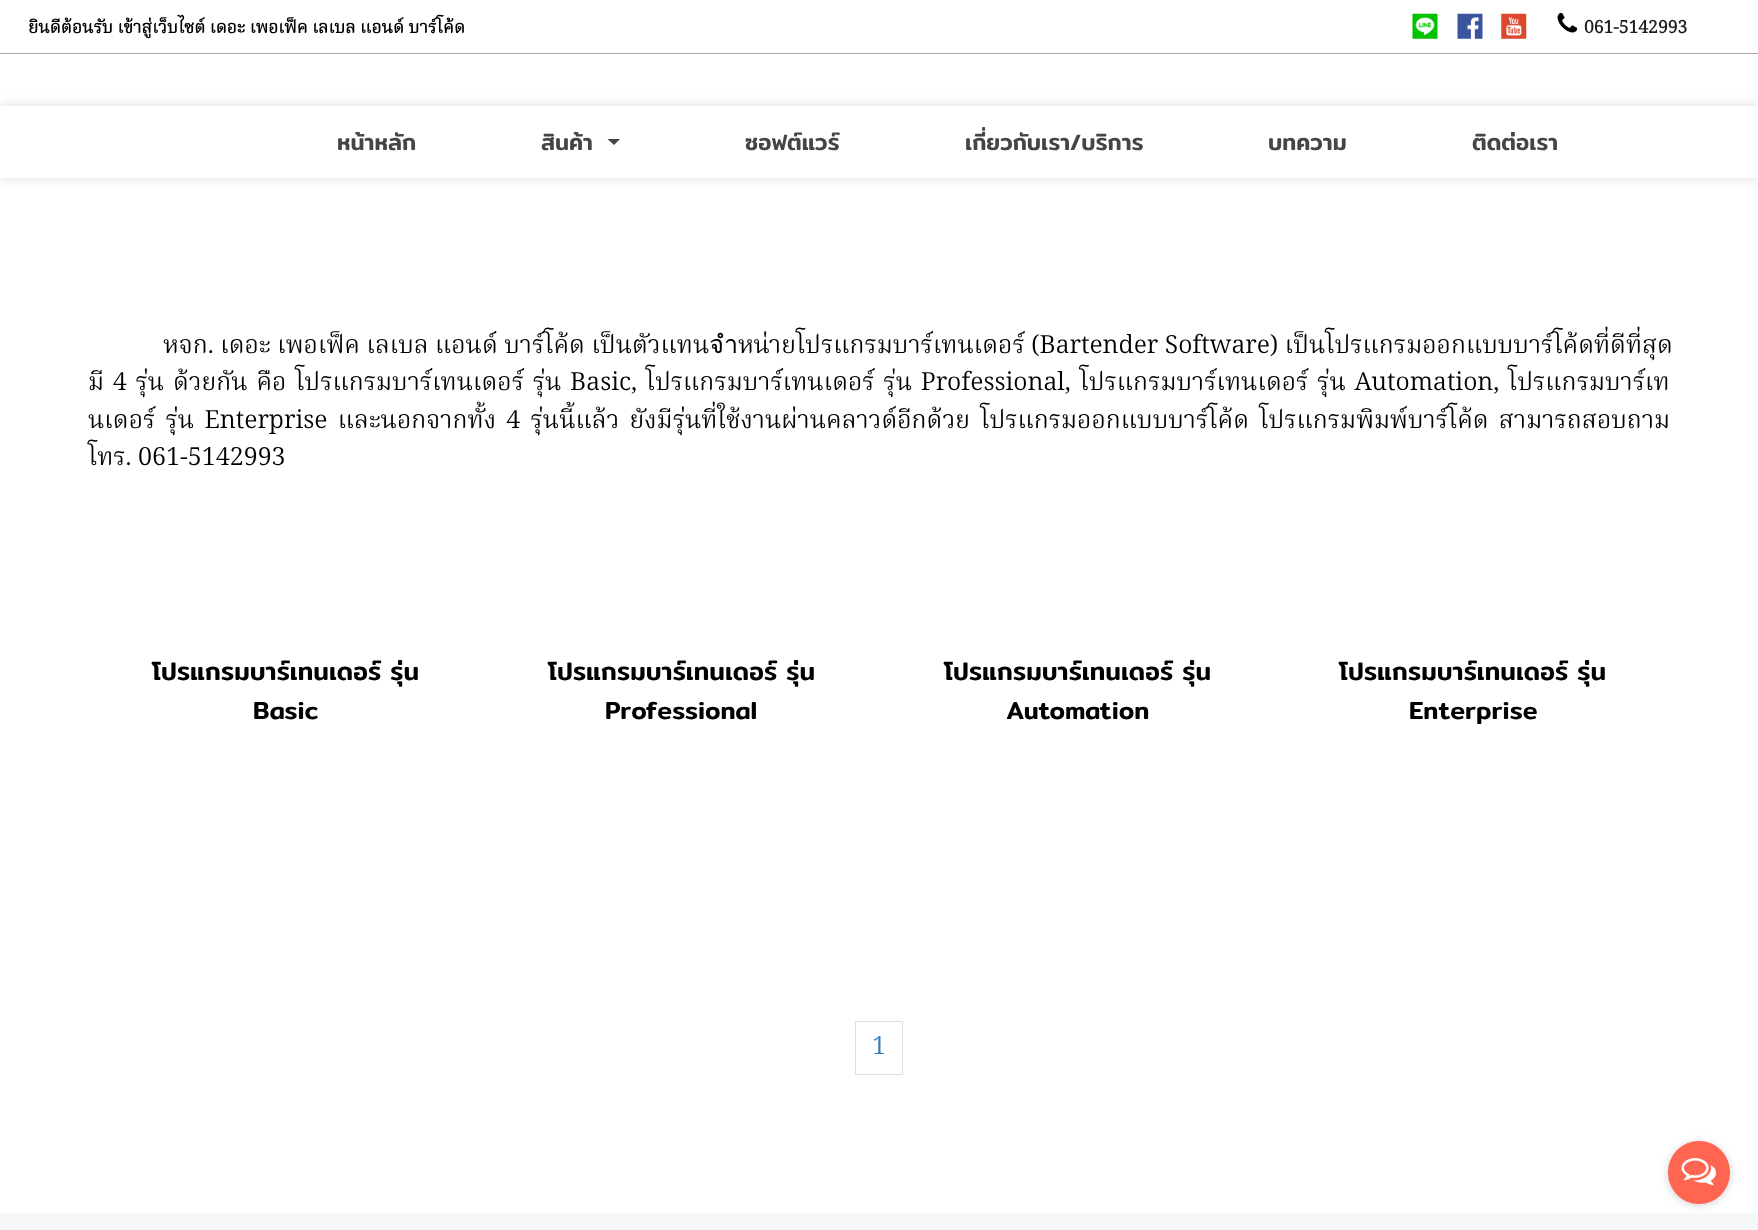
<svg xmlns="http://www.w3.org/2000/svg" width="1758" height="1230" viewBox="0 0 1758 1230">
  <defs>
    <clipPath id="clip1"><path d="M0 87H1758V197H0ZM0 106H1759V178H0Z" clip-rule="evenodd"/></clipPath>
    <filter id="blur1" x="-50%" y="-200%" width="200%" height="500%"><feGaussianBlur stdDeviation="6"/></filter>
    <filter id="blur2" x="-50%" y="-200%" width="200%" height="500%"><feGaussianBlur stdDeviation="4.5"/></filter>
  </defs>
  <rect width="100%" height="100%" fill="#ffffff"/>
  <rect x="0" y="53" width="1758" height="1" fill="#a7a5a5"/>
  <text x="28" y="33" font-family="Noto Serif Thai" font-size="17.5" font-weight="bold" fill="#000000">ยินดีต้อนรับ เข้าสู่เว็บไซต์ เดอะ เพอเฟ็ค เลเบล แอนด์ บาร์โค้ด</text>
  <image x="1412" y="13" width="26" height="26" href="img1.png"/>
  <image x="1457" y="13" width="26" height="26" href="img2.png"/>
  <image x="1501" y="13" width="26" height="26" href="img3.png"/>
  <image x="1557" y="12" width="21" height="21" href="img4.png"/>
  <text x="1584" y="33" font-family="Noto Serif Thai" font-size="17.5" font-weight="bold" fill="#1c1e1e">061-5142993</text>
  <g clip-path="url(#clip1)">
    <rect x="0" y="106" width="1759" height="72" fill="#000000" fill-opacity="0.15" filter="url(#blur1)"/>
  </g>
  <text x="337" y="150" font-family="Mitr" font-size="22.5" font-weight="500" fill="#464545">หน้าหลัก</text>
  <text x="541" y="150" font-family="Mitr" font-size="22.5" font-weight="500" fill="#464545">สินค้า</text>
  <path d="M607.5 139H620L614 145Z" fill="#464545"/>
  <text x="745" y="150" font-family="Mitr" font-size="22.5" font-weight="500" fill="#464545">ซอฟต์แวร์</text>
  <text x="965" y="150" font-family="Mitr" font-size="22.5" font-weight="500" fill="#464545">เกี่ยวกับเรา/บริการ</text>
  <text x="1268" y="150" font-family="Mitr" font-size="22.5" font-weight="500" fill="#464545">บทความ</text>
  <text x="1472" y="150" font-family="Mitr" font-size="22.5" font-weight="500" fill="#464545">ติดต่อเรา</text>
  <text x="163" y="353" font-family="Noto Serif Thai" font-size="25" fill="#000000">หจก. เดอะ เพอเฟ็ค เลเบล แอนด์ บาร์โค้ด เป็นตัวแทนจำหน่ายโปรแกรมบาร์เทนเดอร์ (Bartender Software) เป็นโปรแกรมออกแบบบาร์โค้ดที่ดีที่สุด</text>
  <text x="88" y="390" word-spacing="2.25" font-family="Noto Serif Thai" font-size="25" fill="#000000">มี 4 รุ่น ด้วยกัน คือ โปรแกรมบาร์เทนเดอร์ รุ่น Basic, โปรแกรมบาร์เทนเดอร์ รุ่น Professional, โปรแกรมบาร์เทนเดอร์ รุ่น Automation, โปรแกรมบาร์เท</text>
  <text x="88" y="428" word-spacing="3.75" font-family="Noto Serif Thai" font-size="25" fill="#000000">นเดอร์ รุ่น Enterprise และนอกจากทั้ง 4 รุ่นนี้แล้ว ยังมีรุ่นที่ใช้งานผ่านคลาวด์อีกด้วย โปรแกรมออกแบบบาร์โค้ด โปรแกรมพิมพ์บาร์โค้ด สามารถสอบถาม</text>
  <text x="88" y="465" font-family="Noto Serif Thai" font-size="25" fill="#000000">โทร. 061-5142993</text>
  <text x="152" y="680" font-family="Mitr" font-size="25" font-weight="500" fill="#000000">โปรแกรมบาร์เทนเดอร์ รุ่น</text>
  <text x="253" y="719" font-family="Mitr" font-size="25" font-weight="500" fill="#000000">Basic</text>
  <text x="548" y="680" font-family="Mitr" font-size="25" font-weight="500" fill="#000000">โปรแกรมบาร์เทนเดอร์ รุ่น</text>
  <text x="605" y="719" font-family="Mitr" font-size="25" font-weight="500" fill="#000000">Professional</text>
  <text x="944" y="680" font-family="Mitr" font-size="25" font-weight="500" fill="#000000">โปรแกรมบาร์เทนเดอร์ รุ่น</text>
  <text x="1006" y="719" font-family="Mitr" font-size="25" font-weight="500" fill="#000000">Automation</text>
  <text x="1339" y="680" font-family="Mitr" font-size="25" font-weight="500" fill="#000000">โปรแกรมบาร์เทนเดอร์ รุ่น</text>
  <text x="1409" y="719" font-family="Mitr" font-size="25" font-weight="500" fill="#000000">Enterprise</text>
  <rect x="855.5" y="1021.5" width="47" height="53" fill="none" stroke="#dddddd"/>
  <text x="872" y="1054" font-family="Noto Serif Thai" font-size="25" fill="#337ab7">1</text>
  <rect x="0" y="1213" width="1758" height="17" fill="#f6f7f8"/>
  <rect x="1668" y="1143" width="62" height="62" rx="31" fill="#888888" fill-opacity="0.4" filter="url(#blur2)"/>
  <rect x="1668" y="1141" width="62" height="63" rx="31" fill="#ff6550"/>
  <image x="1681" y="1158" width="35" height="28" href="img5.png"/>
</svg>
